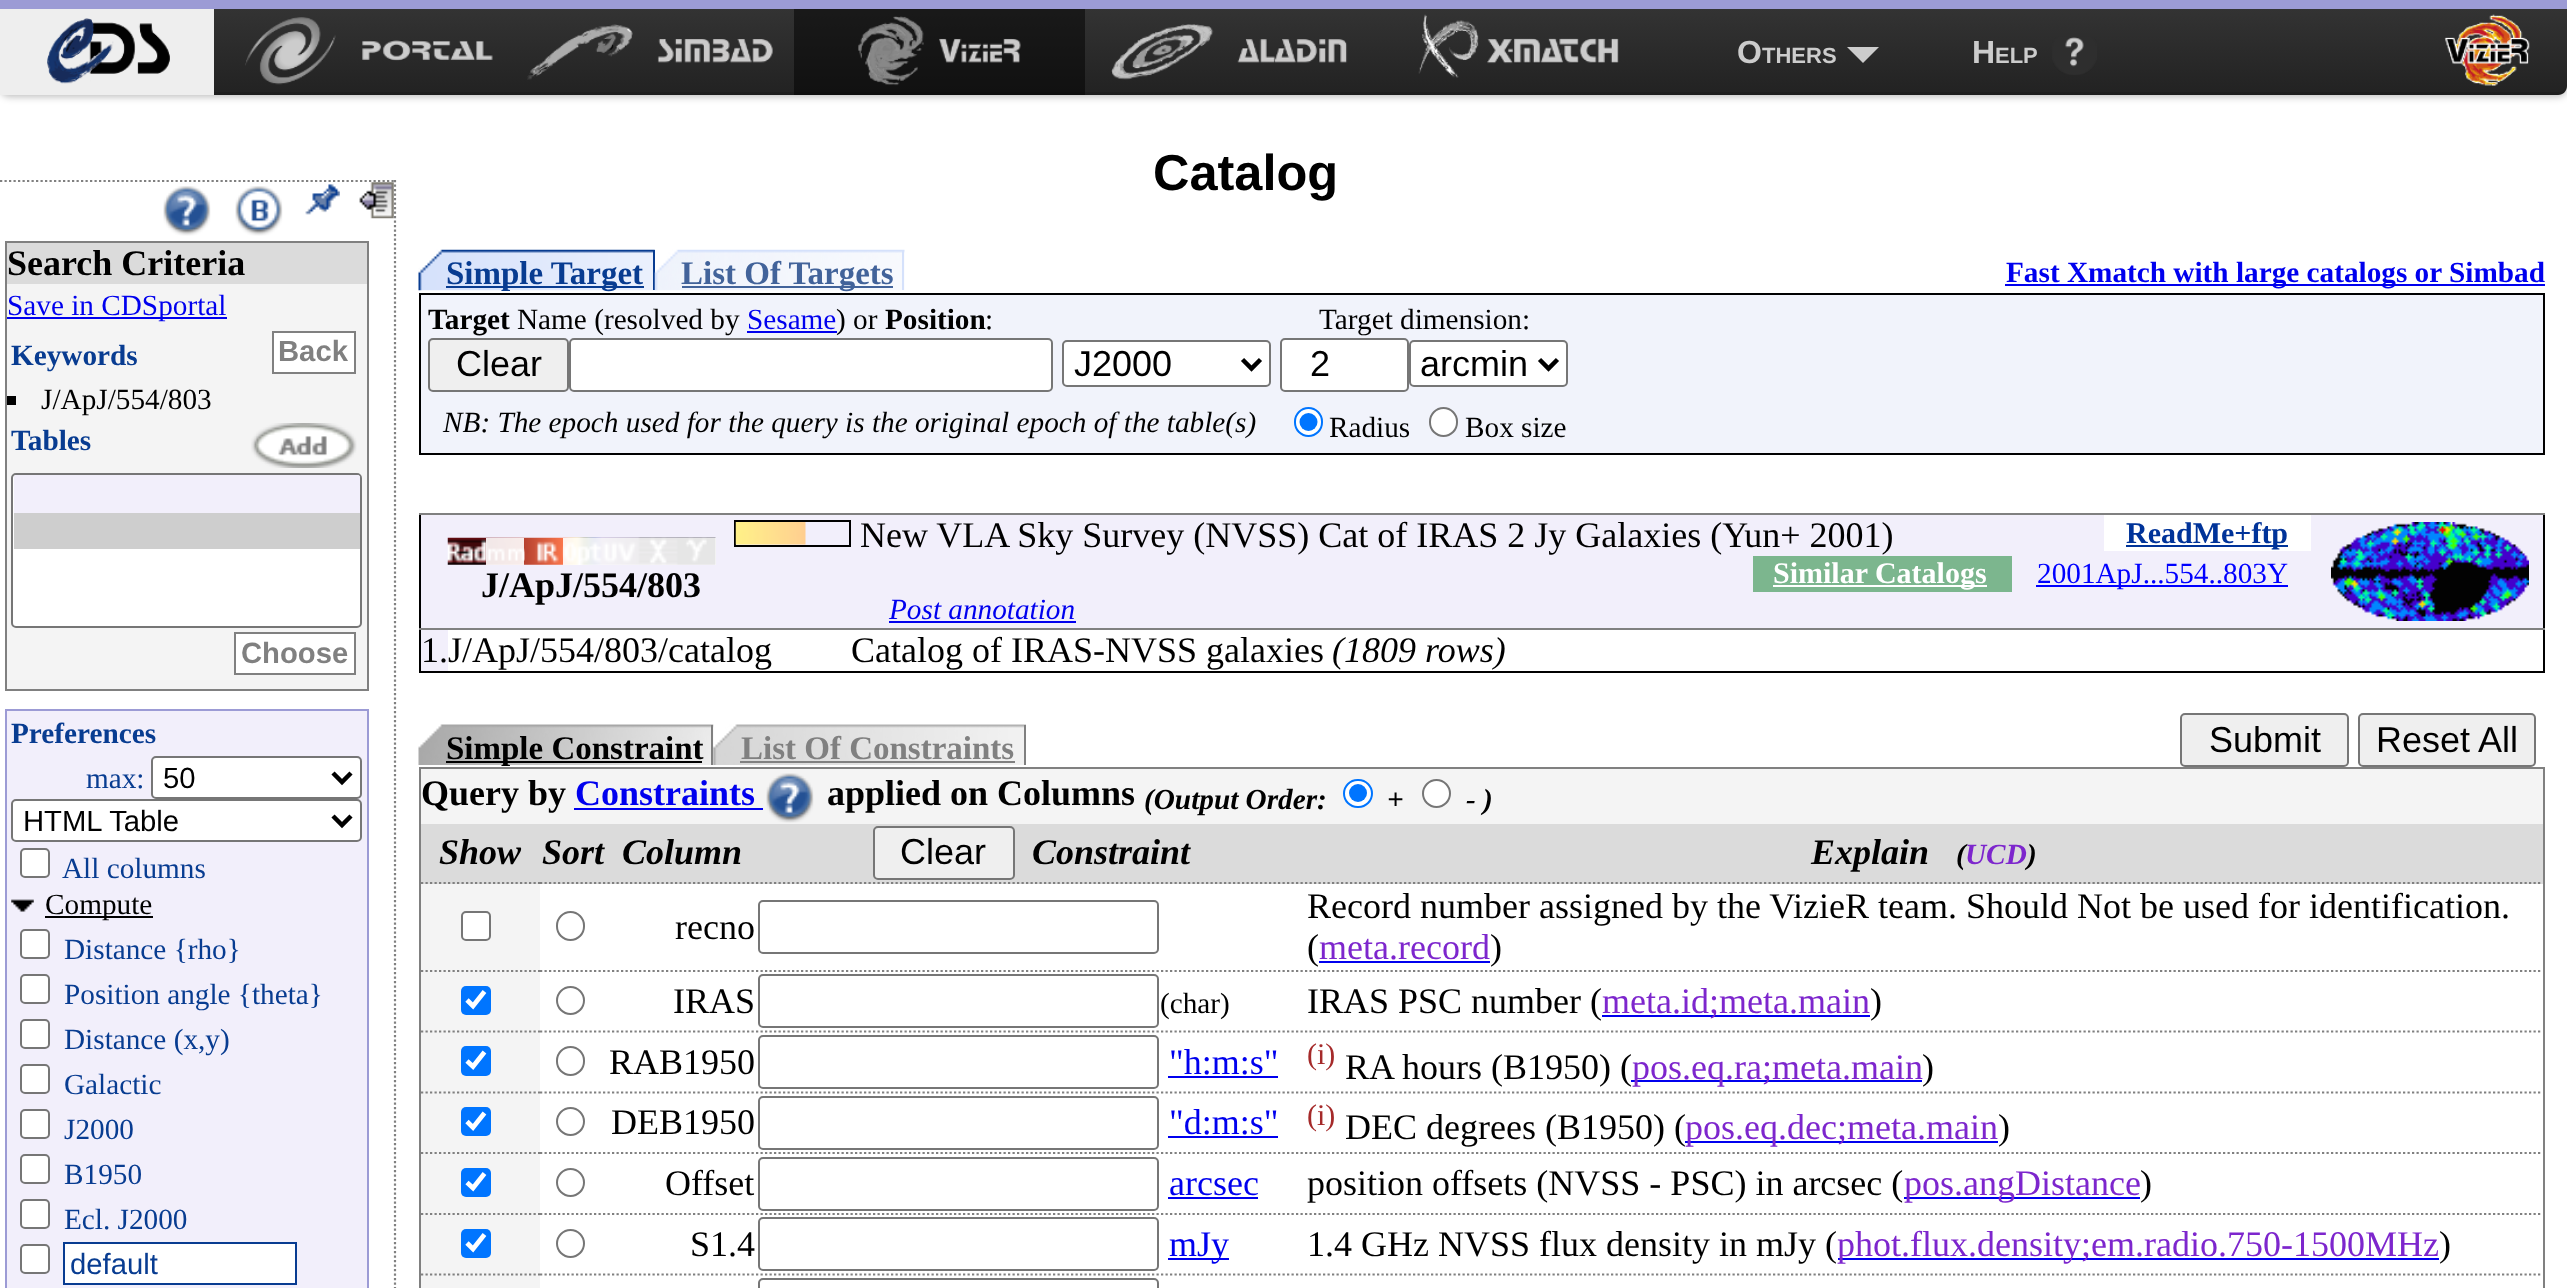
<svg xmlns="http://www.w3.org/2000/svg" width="2567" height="1288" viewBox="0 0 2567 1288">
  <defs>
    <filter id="blur1" x="-50%" y="-200%" width="200%" height="500%"><feGaussianBlur stdDeviation="3.5"/></filter>
    <linearGradient id="g1" gradientUnits="userSpaceOnUse" x1="1284" y1="9" x2="1284" y2="95"><stop offset="0" stop-color="#333333"/><stop offset="1" stop-color="#222222"/></linearGradient>
  </defs>
  <rect width="100%" height="100%" fill="#ffffff"/>
  <rect x="0" y="2" width="2567" height="95" rx="9" fill="#000000" fill-opacity="0.25" filter="url(#blur1)"/>
  <path d="M0 9H2567V86C2567 91 2563 95 2558 95H9C4 95 0 91 0 86Z" fill="url(#g1)"/>
  <path d="M0 83C0 89 2 95 9 95H2558C2565 95 2567 89 2567 83C2567 88 2563 92 2558 92H9C4 92 0 88 0 83Z" fill="#000000" fill-opacity="0.1"/>
  <rect x="0" y="0" width="2567" height="9" fill="#9c9bd5"/>
  <rect x="0" y="9" width="214" height="86" fill="#eeeeee"/>
  <image x="47" y="18" width="123" height="66" href="img1.png"/>
  <image x="245" y="17" width="91" height="68" href="img2.png"/>
  <image x="362" y="40" width="131" height="21" href="img3.png"/>
  <image x="527" y="24" width="106" height="56" href="img4.png"/>
  <image x="657" y="39" width="116" height="24" href="img5.png"/>
  <rect x="794" y="9" width="291" height="86" fill="#000000" fill-opacity="0.5"/>
  <image x="858" y="16" width="66" height="70" href="img6.png"/>
  <image x="939" y="38" width="82" height="25" href="img7.png"/>
  <image x="1111" y="24" width="103" height="56" href="img8.png"/>
  <image x="1237" y="39" width="111" height="24" href="img9.png"/>
  <image x="1418" y="14" width="61" height="64" href="img10.png"/>
  <image x="1487" y="38" width="132" height="26" href="img11.png"/>
  <text x="1737" y="63" font-family="Liberation Sans" font-size="32" font-weight="bold" fill="#cccccc">O</text>
  <text x="1762" y="63" font-family="Liberation Sans" font-size="22" font-weight="bold" fill="#cccccc">THERS</text>
  <path d="M1847 47H1879L1863 63Z" fill="#cccccc"/>
  <text x="1972" y="63" font-family="Liberation Sans" font-size="32" font-weight="bold" fill="#cccccc">H</text>
  <text x="1995" y="63" font-family="Liberation Sans" font-size="22" font-weight="bold" fill="#cccccc">ELP</text>
  <image x="2052" y="37" width="45" height="38" href="img12.png"/>
  <image x="2444" y="14" width="86" height="72" href="img13.png"/>
  <text x="1153" y="190" font-family="Liberation Sans" font-size="50.5" font-weight="bold" fill="#000000">Catalog</text>
  <path d="M0 181H396" fill="none" stroke="#808080" stroke-width="2.2" stroke-dasharray="2.25 2.25"/>
  <path d="M395 180V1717" fill="none" stroke="#808080" stroke-width="2.2" stroke-dasharray="2.25 2.25"/>
  <image x="163" y="186" width="48" height="50" href="img14.png"/>
  <image x="235" y="186" width="48" height="50" href="img15.png"/>
  <image x="305" y="184" width="35" height="31" href="img16.png"/>
  <image x="359" y="182" width="35" height="37" href="img17.png"/>
  <rect x="7" y="284" width="360" height="405" fill="#f4f4f4"/>
  <rect x="6" y="242" width="362" height="448" fill="none" stroke="#808080" stroke-width="2"/>
  <rect x="7" y="243" width="360" height="41" fill="#dbdbdb"/>
  <text x="7" y="275" font-family="Liberation Serif" font-size="36" font-weight="bold" fill="#000000">Search Criteria</text>
  <rect x="7" y="317" width="220" height="2" fill="#0000ee"/>
  <text x="7" y="315" font-family="Liberation Serif" font-size="29.25" fill="#0000ee">Save in CDSportal</text>
  <text x="11" y="365" font-family="Liberation Serif" font-size="29.25" font-weight="bold" fill="#083c91">Keywords</text>
  <rect x="273" y="332" width="82" height="41" fill="#ffffff" stroke="#808080" stroke-width="2"/>
  <text x="278" y="361" font-family="Liberation Sans" font-size="29.25" font-weight="bold" fill="#808080">Back</text>
  <rect x="7" y="396" width="9" height="9" fill="#000000"/>
  <text x="41" y="409" font-family="Liberation Serif" font-size="29.25" fill="#000000">J/ApJ/554/803</text>
  <text x="11" y="450" font-family="Liberation Serif" font-size="29.25" font-weight="bold" fill="#083c91">Tables</text>
  <image x="251" y="423" width="106" height="45" href="img18.png"/>
  <rect x="12" y="474" width="349" height="153" rx="4" fill="#ffffff" stroke="#767676" stroke-width="2"/>
  <path d="M16 475H358C359 475 360 476 360 477V513H14V477C14 476 15 475 16 475Z" fill="#f2effb"/>
  <rect x="14" y="513" width="346" height="36" fill="#cecece"/>
  <rect x="235" y="633" width="120" height="41" fill="#ffffff" stroke="#808080" stroke-width="2"/>
  <text x="241" y="663" font-family="Liberation Sans" font-size="29.25" font-weight="bold" fill="#808080">Choose</text>
  <rect x="6" y="710" width="362" height="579" fill="#f2effb" stroke="#9c9bd5" stroke-width="2"/>
  <text x="11" y="743" font-family="Liberation Serif" font-size="29.25" font-weight="bold" fill="#083c91">Preferences</text>
  <text x="86" y="788" font-family="Liberation Serif" font-size="29.25" fill="#083c91">max:</text>
  <rect x="152" y="757" width="209" height="41" rx="4" fill="#ffffff" stroke="#767676" stroke-width="2"/>
  <path d="M333 773L342 782L351 773" fill="none" stroke="#000000" stroke-width="4.5"/>
  <text x="163" y="788" font-family="Liberation Sans" font-size="29.25" fill="#000000">50</text>
  <rect x="12" y="800" width="349" height="41" rx="4" fill="#ffffff" stroke="#767676" stroke-width="2"/>
  <path d="M333 816L342 825L351 816" fill="none" stroke="#000000" stroke-width="4.5"/>
  <text x="23" y="831" font-family="Liberation Sans" font-size="29.25" fill="#000000">HTML Table</text>
  <rect x="21" y="849" width="28" height="28" rx="4" fill="#ffffff" stroke="#767676" stroke-width="2"/>
  <text x="62" y="878" font-family="Liberation Serif" font-size="29.25" fill="#083c91">All columns</text>
  <image x="11" y="899" width="23" height="13" href="img19.png"/>
  <rect x="45" y="916" width="108" height="2" fill="#000000"/>
  <text x="45" y="914" font-family="Liberation Serif" font-size="29.25" fill="#000000">Compute</text>
  <rect x="21" y="930" width="28" height="28" rx="4" fill="#ffffff" stroke="#767676" stroke-width="2"/>
  <text x="64" y="959" font-family="Liberation Serif" font-size="29.25" fill="#083c91">Distance {rho}</text>
  <rect x="21" y="975" width="28" height="28" rx="4" fill="#ffffff" stroke="#767676" stroke-width="2"/>
  <text x="64" y="1004" font-family="Liberation Serif" font-size="29.25" fill="#083c91">Position angle {theta}</text>
  <rect x="21" y="1020" width="28" height="28" rx="4" fill="#ffffff" stroke="#767676" stroke-width="2"/>
  <text x="64" y="1049" font-family="Liberation Serif" font-size="29.25" fill="#083c91">Distance (x,y)</text>
  <rect x="21" y="1065" width="28" height="28" rx="4" fill="#ffffff" stroke="#767676" stroke-width="2"/>
  <text x="64" y="1094" font-family="Liberation Serif" font-size="29.25" fill="#083c91">Galactic</text>
  <rect x="21" y="1110" width="28" height="28" rx="4" fill="#ffffff" stroke="#767676" stroke-width="2"/>
  <text x="64" y="1139" font-family="Liberation Serif" font-size="29.25" fill="#083c91">J2000</text>
  <rect x="21" y="1155" width="28" height="28" rx="4" fill="#ffffff" stroke="#767676" stroke-width="2"/>
  <text x="64" y="1184" font-family="Liberation Serif" font-size="29.25" fill="#083c91">B1950</text>
  <rect x="21" y="1200" width="28" height="28" rx="4" fill="#ffffff" stroke="#767676" stroke-width="2"/>
  <text x="64" y="1229" font-family="Liberation Serif" font-size="29.25" fill="#083c91">Ecl. J2000</text>
  <rect x="21" y="1245" width="28" height="28" rx="4" fill="#ffffff" stroke="#767676" stroke-width="2"/>
  <rect x="64" y="1243" width="232" height="41" fill="#ffffff" stroke="#083c91" stroke-width="2"/>
  <text x="70" y="1274" font-family="Liberation Sans" font-size="29.25" fill="#083c91">default</text>
  <image x="418" y="249" width="237" height="42" href="img20.png"/>
  <rect x="653" y="250" width="2" height="40" fill="#083c91"/>
  <image x="654" y="249" width="251" height="42" href="img21.png"/>
  <rect x="446" y="286" width="198" height="2" fill="#083c91"/>
  <text x="446" y="284" font-family="Liberation Serif" font-size="33" font-weight="bold" fill="#083c91">Simple Target</text>
  <rect x="682" y="286" width="211" height="2" fill="#42639a"/>
  <text x="681" y="284" font-family="Liberation Serif" font-size="33" font-weight="bold" fill="#42639a">List Of Targets</text>
  <rect x="902" y="250" width="2" height="40" fill="#d5e1fb"/>
  <rect x="2005" y="284" width="540" height="2" fill="#0000ee"/>
  <text x="2006" y="282" font-family="Liberation Serif" font-size="29.25" font-weight="bold" fill="#0000ee">Fast Xmatch with large catalogs or Simbad</text>
  <rect x="420" y="294" width="2124" height="160" fill="#f1f3fb" stroke="#000000" stroke-width="2"/>
  <text x="428" y="329" font-family="Liberation Serif" font-size="29.25" font-weight="bold" fill="#000000">Target</text>
  <text x="517" y="329" font-family="Liberation Serif" font-size="29.25" fill="#000000">Name (resolved by</text>
  <text x="747" y="329" font-family="Liberation Serif" font-size="29.25" fill="#0000ee">Sesame</text>
  <rect x="747" y="331" width="90" height="2" fill="#0000ee"/>
  <text x="836" y="329" font-family="Liberation Serif" font-size="29.25" fill="#000000">) or</text>
  <text x="885" y="329" font-family="Liberation Serif" font-size="29.25" font-weight="bold" fill="#000000">Position</text>
  <text x="985" y="329" font-family="Liberation Serif" font-size="29.25" fill="#000000">:</text>
  <rect x="429" y="339" width="139" height="52" rx="4" fill="#efefef" stroke="#767676" stroke-width="2"/>
  <text x="456" y="376" font-family="Liberation Sans" font-size="36" fill="#000000">Clear</text>
  <rect x="570" y="339" width="482" height="52" rx="4" fill="#ffffff" stroke="#767676" stroke-width="2"/>
  <rect x="1063" y="341" width="207" height="45" rx="4" fill="#ffffff" stroke="#767676" stroke-width="2"/>
  <path d="M1242.5 359.5L1251.5 368.5L1260.5 359.5" fill="none" stroke="#000000" stroke-width="4.5"/>
  <text x="1074" y="376" font-family="Liberation Sans" font-size="36" fill="#000000">J2000</text>
  <text x="1319" y="329" font-family="Liberation Serif" font-size="29.25" fill="#000000">Target dimension:</text>
  <rect x="1281" y="339" width="127" height="52" rx="4" fill="#ffffff" stroke="#767676" stroke-width="2"/>
  <text x="1310" y="376" font-family="Liberation Sans" font-size="36" fill="#000000">2</text>
  <rect x="1410" y="341" width="157" height="45" rx="4" fill="#ffffff" stroke="#767676" stroke-width="2"/>
  <path d="M1539.5 359.5L1548.5 368.5L1557.5 359.5" fill="none" stroke="#000000" stroke-width="4.5"/>
  <text x="1420" y="376" font-family="Liberation Sans" font-size="36" fill="#000000">arcmin</text>
  <text x="443" y="432" font-family="Liberation Serif" font-size="29.25" font-style="italic" fill="#000000">NB: The epoch used for the query is the original epoch of the table(s)</text>
  <rect x="1295" y="408" width="27" height="28" rx="13.5" fill="#ffffff" stroke="#0075ff" stroke-width="2"/>
  <circle cx="1308.5" cy="422" r="9" fill="#0075ff"/>
  <text x="1329" y="437" font-family="Liberation Serif" font-size="29.25" fill="#000000">Radius</text>
  <rect x="1430" y="408" width="27" height="28" rx="13.5" fill="#ffffff" stroke="#767676" stroke-width="2"/>
  <text x="1465" y="437" font-family="Liberation Serif" font-size="29.25" fill="#000000">Box size</text>
  <rect x="2543" y="513" width="2" height="160" fill="#000000"/>
  <rect x="419" y="671" width="2126" height="2" fill="#000000"/>
  <rect x="419" y="513" width="2" height="160" fill="#000000"/>
  <rect x="419" y="513" width="2126" height="2" fill="#808080"/>
  <rect x="421" y="515" width="2122" height="113" fill="#f2effb"/>
  <image x="2331" y="522" width="198" height="99" href="img22.png"/>
  <image x="447" y="537" width="269" height="28" href="img23.png"/>
  <rect x="486" y="538" width="38" height="27" fill="#ffffff" fill-opacity="0.9"/>
  <rect x="563" y="538" width="38" height="27" fill="#ffffff" fill-opacity="0.9"/>
  <rect x="601" y="538" width="38" height="27" fill="#ffffff" fill-opacity="0.9"/>
  <rect x="639" y="538" width="38" height="27" fill="#ffffff" fill-opacity="0.9"/>
  <rect x="677" y="538" width="39" height="27" fill="#ffffff" fill-opacity="0.9"/>
  <text x="481" y="597" font-family="Liberation Serif" font-size="36" font-weight="bold" fill="#000000">J/ApJ/554/803</text>
  <rect x="735" y="521" width="115" height="25" fill="none" stroke="#000000" stroke-width="2"/>
  <image x="735" y="522" width="71" height="23" href="img24.png"/>
  <text x="860" y="547" font-family="Liberation Serif" font-size="36" fill="#000000">New VLA Sky Survey (NVSS) Cat of IRAS 2 Jy Galaxies (Yun+ 2001)</text>
  <rect x="2104" y="515" width="207" height="36" fill="#ffffff"/>
  <rect x="2126" y="545" width="162" height="2" fill="#003399"/>
  <text x="2126" y="543" font-family="Liberation Serif" font-size="30" font-weight="bold" fill="#003399">ReadMe+ftp</text>
  <rect x="1753" y="556" width="259" height="36" fill="#7cb68e"/>
  <rect x="1773" y="585" width="214" height="2" fill="#ffffff"/>
  <text x="1773" y="583" font-family="Liberation Serif" font-size="30" font-weight="bold" fill="#ffffff">Similar Catalogs</text>
  <rect x="2036" y="585" width="252" height="2" fill="#0000ff"/>
  <text x="2037" y="583" font-family="Liberation Serif" font-size="29.25" fill="#0000ff">2001ApJ...554..803Y</text>
  <text x="889" y="619" font-family="Liberation Serif" font-size="29.25" font-style="italic" fill="#0000ee">Post annotation</text>
  <rect x="889" y="621" width="187" height="2" fill="#0000ee"/>
  <rect x="421" y="630" width="27" height="41" fill="#f2effb"/>
  <text x="421" y="662" font-family="Liberation Serif" font-size="36" fill="#000000">1.J/ApJ/554/803/catalog</text>
  <rect x="419" y="628" width="2126" height="2" fill="#808080"/>
  <text x="851" y="662" font-family="Liberation Serif" font-size="36" fill="#000000">Catalog of IRAS-NVSS galaxies</text>
  <text x="1332" y="662" font-family="Liberation Serif" font-size="36" font-style="italic" fill="#000000">(1809 rows)</text>
  <image x="418" y="724" width="296" height="41" href="img25.png"/>
  <image x="713" y="724" width="313" height="41" href="img26.png"/>
  <rect x="446" y="761" width="256" height="2" fill="#000000"/>
  <text x="446" y="759" font-family="Liberation Serif" font-size="33" font-weight="bold" fill="#000000">Simple Constraint</text>
  <rect x="711" y="725" width="2" height="40" fill="#808080"/>
  <text x="741" y="759" font-family="Liberation Serif" font-size="33" font-weight="bold" fill="#808080">List Of Constraints</text>
  <rect x="1024" y="725" width="2" height="40" fill="#808080"/>
  <rect x="740" y="761" width="275" height="2" fill="#808080"/>
  <rect x="2181" y="714" width="167" height="52" rx="4" fill="#efefef" stroke="#767676" stroke-width="2"/>
  <text x="2209" y="752" font-family="Liberation Sans" font-size="36" fill="#000000">Submit</text>
  <rect x="2359" y="714" width="176" height="52" rx="4" fill="#efefef" stroke="#767676" stroke-width="2"/>
  <text x="2376" y="752" font-family="Liberation Sans" font-size="36" fill="#000000">Reset All</text>
  <rect x="421" y="769" width="2122" height="55" fill="#f4f4f4"/>
  <rect x="420" y="768" width="2124" height="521" fill="none" stroke="#808080" stroke-width="2"/>
  <text x="421" y="805" font-family="Liberation Serif" font-size="36" font-weight="bold" fill="#000000">Query by</text>
  <text x="575" y="805" font-family="Liberation Serif" font-size="36" font-weight="bold" fill="#0000ee">Constraints</text>
  <rect x="574" y="808" width="189" height="2" fill="#0000ee"/>
  <image x="766" y="773" width="48" height="50" href="img27.png"/>
  <text x="827" y="805" font-family="Liberation Serif" font-size="36" font-weight="bold" fill="#000000">applied on Columns</text>
  <text x="1144" y="809" font-family="Liberation Serif" font-size="29.25" font-weight="bold" font-style="italic" fill="#000000">(Output Order:</text>
  <rect x="1344" y="780" width="28" height="27" rx="13.5" fill="#ffffff" stroke="#0075ff" stroke-width="2"/>
  <circle cx="1358" cy="793" r="9" fill="#0075ff"/>
  <text x="1387" y="809" font-family="Liberation Serif" font-size="29.25" font-weight="bold" font-style="italic" fill="#000000">+</text>
  <circle cx="1436.5" cy="793.5" r="13.5" fill="#ffffff" stroke="#767676" stroke-width="2"/>
  <text x="1466" y="809" font-family="Liberation Serif" font-size="29.25" font-weight="bold" font-style="italic" fill="#000000">- )</text>
  <rect x="421" y="824" width="2122" height="60" fill="#dbdbdb"/>
  <path d="M421 883H540" fill="none" stroke="#808080" stroke-width="2.2" stroke-dasharray="2.25 2.25"/>
  <text x="439" y="864" font-family="Liberation Serif" font-size="36" font-weight="bold" font-style="italic" fill="#000000">Show</text>
  <path d="M540 883H607.5" fill="none" stroke="#808080" stroke-width="2.2" stroke-dasharray="2.25 2.25"/>
  <text x="542" y="864" font-family="Liberation Serif" font-size="36" font-weight="bold" font-style="italic" fill="#000000">Sort</text>
  <path d="M607.5 883H756" fill="none" stroke="#808080" stroke-width="2.2" stroke-dasharray="2.25 2.25"/>
  <text x="622" y="864" font-family="Liberation Serif" font-size="36" font-weight="bold" font-style="italic" fill="#000000">Column</text>
  <path d="M756 883H1305" fill="none" stroke="#808080" stroke-width="2.2" stroke-dasharray="2.25 2.25"/>
  <rect x="874" y="827" width="140" height="52" rx="4" fill="#efefef" stroke="#767676" stroke-width="2"/>
  <text x="900" y="864" font-family="Liberation Sans" font-size="36" fill="#000000">Clear</text>
  <text x="1032" y="864" font-family="Liberation Serif" font-size="36" font-weight="bold" font-style="italic" fill="#000000">Constraint</text>
  <path d="M1305 883H2542.5" fill="none" stroke="#808080" stroke-width="2.2" stroke-dasharray="2.25 2.25"/>
  <text x="1811" y="864" font-family="Liberation Serif" font-size="36" font-weight="bold" font-style="italic" fill="#000000">Explain</text>
  <text x="1956" y="864" font-family="Liberation Serif" font-size="29.25" font-weight="bold" font-style="italic" fill="#000000">(</text>
  <text x="1965" y="864" font-family="Liberation Serif" font-size="29.25" font-weight="bold" font-style="italic" fill="#7d26cd">UCD</text>
  <text x="2027" y="864" font-family="Liberation Serif" font-size="29.25" font-weight="bold" font-style="italic" fill="#000000">)</text>
  <rect x="421" y="884" width="119" height="88" fill="#f4f4f4"/>
  <path d="M421 971H540" fill="none" stroke="#808080" stroke-width="2.2" stroke-dasharray="2.25 2.25"/>
  <rect x="462" y="912" width="28" height="28" rx="4" fill="#ffffff" stroke="#767676" stroke-width="2"/>
  <path d="M540 971H607.5" fill="none" stroke="#808080" stroke-width="2.2" stroke-dasharray="2.25 2.25"/>
  <rect x="557" y="912" width="27" height="28" rx="13.5" fill="none" stroke="#767676" stroke-width="2"/>
  <path d="M607.5 971H756" fill="none" stroke="#808080" stroke-width="2.2" stroke-dasharray="2.25 2.25"/>
  <text x="675" y="939" font-family="Liberation Serif" font-size="36" fill="#000000">recno</text>
  <path d="M756 971H1305" fill="none" stroke="#808080" stroke-width="2.2" stroke-dasharray="2.25 2.25"/>
  <rect x="759" y="901" width="399" height="52" rx="4" fill="none" stroke="#767676" stroke-width="2"/>
  <path d="M1305 971H2542.5" fill="none" stroke="#808080" stroke-width="2.2" stroke-dasharray="2.25 2.25"/>
  <text x="1307" y="918" font-family="Liberation Serif" font-size="36" fill="#000000">Record number assigned by the VizieR team. Should Not be used for identification.</text>
  <text x="1307" y="959" font-family="Liberation Serif" font-size="36" fill="#000000">(</text>
  <rect x="1319" y="961" width="171" height="2" fill="#0000ee"/>
  <text x="1319" y="959" font-family="Liberation Serif" font-size="36" fill="#7d26cd">meta.record</text>
  <text x="1490" y="959" font-family="Liberation Serif" font-size="36" fill="#000000">)</text>
  <rect x="421" y="972" width="119" height="182" fill="#f4f4f4"/>
  <path d="M421 1031.5H540" fill="none" stroke="#808080" stroke-width="2.2" stroke-dasharray="2.25 2.25"/>
  <rect x="461" y="986" width="30" height="29" rx="5" fill="#0075ff"/>
  <path d="M467 1000L473 1006L484.5 991.5" fill="none" stroke="#ffffff" stroke-width="4.7"/>
  <path d="M540 1031.5H607.5" fill="none" stroke="#808080" stroke-width="2.2" stroke-dasharray="2.25 2.25"/>
  <circle cx="570.5" cy="1000.5" r="13.5" fill="none" stroke="#767676" stroke-width="2"/>
  <path d="M607.5 1031.5H756" fill="none" stroke="#808080" stroke-width="2.2" stroke-dasharray="2.25 2.25"/>
  <text x="673" y="1013" font-family="Liberation Serif" font-size="36" fill="#000000">IRAS</text>
  <path d="M756 1031.5H1305" fill="none" stroke="#808080" stroke-width="2.2" stroke-dasharray="2.25 2.25"/>
  <rect x="759" y="975" width="399" height="52" rx="4" fill="none" stroke="#767676" stroke-width="2"/>
  <text x="1160" y="1013" font-family="Liberation Serif" font-size="29.25" fill="#000000">(char)</text>
  <path d="M1305 1031.5H2542.5" fill="none" stroke="#808080" stroke-width="2.2" stroke-dasharray="2.25 2.25"/>
  <text x="1307" y="1013" font-family="Liberation Serif" font-size="36" fill="#000000">IRAS PSC number (</text>
  <rect x="1602" y="1015" width="268" height="2" fill="#0000ee"/>
  <text x="1602" y="1013" font-family="Liberation Serif" font-size="36" fill="#7d26cd">meta.id;meta.main</text>
  <text x="1870" y="1013" font-family="Liberation Serif" font-size="36" fill="#000000">)</text>
  <path d="M421 1092.5H540" fill="none" stroke="#808080" stroke-width="2.2" stroke-dasharray="2.25 2.25"/>
  <rect x="461" y="1046" width="30" height="30" rx="5" fill="#0075ff"/>
  <path d="M467 1061L473 1066.5L484.5 1052" fill="none" stroke="#ffffff" stroke-width="4.7"/>
  <path d="M540 1092.5H607.5" fill="none" stroke="#808080" stroke-width="2.2" stroke-dasharray="2.25 2.25"/>
  <rect x="557" y="1047" width="27" height="28" rx="13.5" fill="none" stroke="#767676" stroke-width="2"/>
  <path d="M607.5 1092.5H756" fill="none" stroke="#808080" stroke-width="2.2" stroke-dasharray="2.25 2.25"/>
  <text x="609" y="1074" font-family="Liberation Serif" font-size="36" fill="#000000">RAB1950</text>
  <path d="M756 1092.5H1305" fill="none" stroke="#808080" stroke-width="2.2" stroke-dasharray="2.25 2.25"/>
  <rect x="759" y="1036" width="399" height="52" rx="4" fill="none" stroke="#767676" stroke-width="2"/>
  <text x="1169" y="1074" font-family="Liberation Serif" font-size="36" fill="#0000ee">"h:m:s"</text>
  <rect x="1168" y="1076" width="110" height="2" fill="#0000ee"/>
  <path d="M1305 1092.5H2542.5" fill="none" stroke="#808080" stroke-width="2.2" stroke-dasharray="2.25 2.25"/>
  <text x="1307" y="1064" font-family="Liberation Serif" font-size="30" fill="#a52a2a">(i)</text>
  <text x="1345" y="1079" font-family="Liberation Serif" font-size="36" fill="#000000">RA hours (B1950) (</text>
  <rect x="1631" y="1080" width="291" height="2" fill="#0000ee"/>
  <text x="1632" y="1079" font-family="Liberation Serif" font-size="36" fill="#7d26cd">pos.eq.ra;meta.main</text>
  <text x="1922" y="1079" font-family="Liberation Serif" font-size="36" fill="#000000">)</text>
  <path d="M421 1153H540" fill="none" stroke="#808080" stroke-width="2.2" stroke-dasharray="2.25 2.25"/>
  <rect x="461" y="1107" width="30" height="29" rx="5" fill="#0075ff"/>
  <path d="M467 1121.5L473 1127.5L484.5 1113" fill="none" stroke="#ffffff" stroke-width="4.7"/>
  <path d="M540 1153H607.5" fill="none" stroke="#808080" stroke-width="2.2" stroke-dasharray="2.25 2.25"/>
  <circle cx="570.5" cy="1121.5" r="13.5" fill="none" stroke="#767676" stroke-width="2"/>
  <path d="M607.5 1153H756" fill="none" stroke="#808080" stroke-width="2.2" stroke-dasharray="2.25 2.25"/>
  <text x="611" y="1134" font-family="Liberation Serif" font-size="36" fill="#000000">DEB1950</text>
  <path d="M756 1153H1305" fill="none" stroke="#808080" stroke-width="2.2" stroke-dasharray="2.25 2.25"/>
  <rect x="759" y="1097" width="399" height="52" rx="4" fill="none" stroke="#767676" stroke-width="2"/>
  <text x="1169" y="1134" font-family="Liberation Serif" font-size="36" fill="#0000ee">"d:m:s"</text>
  <rect x="1168" y="1136" width="110" height="2" fill="#0000ee"/>
  <path d="M1305 1153H2542.5" fill="none" stroke="#808080" stroke-width="2.2" stroke-dasharray="2.25 2.25"/>
  <text x="1307" y="1125" font-family="Liberation Serif" font-size="30" fill="#a52a2a">(i)</text>
  <text x="1345" y="1139" font-family="Liberation Serif" font-size="36" fill="#000000">DEC degrees (B1950) (</text>
  <rect x="1685" y="1141" width="313" height="2" fill="#0000ee"/>
  <text x="1685" y="1139" font-family="Liberation Serif" font-size="36" fill="#7d26cd">pos.eq.dec;meta.main</text>
  <text x="1998" y="1139" font-family="Liberation Serif" font-size="36" fill="#000000">)</text>
  <rect x="421" y="1154" width="119" height="61" fill="#f4f4f4"/>
  <path d="M421 1214H540" fill="none" stroke="#808080" stroke-width="2.2" stroke-dasharray="2.25 2.25"/>
  <rect x="461" y="1168" width="30" height="29" rx="5" fill="#0075ff"/>
  <path d="M467 1182.5L473 1188L484.5 1173.5" fill="none" stroke="#ffffff" stroke-width="4.7"/>
  <path d="M540 1214H607.5" fill="none" stroke="#808080" stroke-width="2.2" stroke-dasharray="2.25 2.25"/>
  <circle cx="570.5" cy="1182.5" r="13.5" fill="none" stroke="#767676" stroke-width="2"/>
  <path d="M607.5 1214H756" fill="none" stroke="#808080" stroke-width="2.2" stroke-dasharray="2.25 2.25"/>
  <text x="665" y="1195" font-family="Liberation Serif" font-size="36" fill="#000000">Offset</text>
  <path d="M756 1214H1305" fill="none" stroke="#808080" stroke-width="2.2" stroke-dasharray="2.25 2.25"/>
  <rect x="759" y="1158" width="399" height="52" rx="4" fill="none" stroke="#767676" stroke-width="2"/>
  <text x="1169" y="1195" font-family="Liberation Serif" font-size="36" fill="#0000ee">arcsec</text>
  <rect x="1168" y="1197" width="90" height="2" fill="#0000ee"/>
  <path d="M1305 1214H2542.5" fill="none" stroke="#808080" stroke-width="2.2" stroke-dasharray="2.25 2.25"/>
  <text x="1307" y="1195" font-family="Liberation Serif" font-size="36" fill="#000000">position offsets (NVSS - PSC) in arcsec (</text>
  <rect x="1904" y="1197" width="236" height="2" fill="#0000ee"/>
  <text x="1904" y="1195" font-family="Liberation Serif" font-size="36" fill="#7d26cd">pos.angDistance</text>
  <text x="2140" y="1195" font-family="Liberation Serif" font-size="36" fill="#000000">)</text>
  <rect x="421" y="1215" width="119" height="73" fill="#f4f4f4"/>
  <path d="M421 1274.5H540" fill="none" stroke="#808080" stroke-width="2.2" stroke-dasharray="2.25 2.25"/>
  <rect x="461" y="1229" width="30" height="29" rx="5" fill="#0075ff"/>
  <path d="M467 1243L473 1249L484.5 1234.5" fill="none" stroke="#ffffff" stroke-width="4.7"/>
  <path d="M540 1274.5H607.5" fill="none" stroke="#808080" stroke-width="2.2" stroke-dasharray="2.25 2.25"/>
  <circle cx="570.5" cy="1243.5" r="13.5" fill="none" stroke="#767676" stroke-width="2"/>
  <path d="M607.5 1274.5H756" fill="none" stroke="#808080" stroke-width="2.2" stroke-dasharray="2.25 2.25"/>
  <text x="690" y="1256" font-family="Liberation Serif" font-size="36" fill="#000000">S1.4</text>
  <path d="M756 1274.5H1305" fill="none" stroke="#808080" stroke-width="2.2" stroke-dasharray="2.25 2.25"/>
  <rect x="759" y="1218" width="399" height="52" rx="4" fill="none" stroke="#767676" stroke-width="2"/>
  <rect x="1168" y="1258" width="61" height="2" fill="#0000ee"/>
  <text x="1169" y="1256" font-family="Liberation Serif" font-size="36" fill="#0000ee">mJy</text>
  <path d="M1305 1274.5H2542.5" fill="none" stroke="#808080" stroke-width="2.2" stroke-dasharray="2.25 2.25"/>
  <text x="1307" y="1256" font-family="Liberation Serif" font-size="36" fill="#000000">1.4 GHz NVSS flux density in mJy (</text>
  <rect x="1838" y="1258" width="601" height="2" fill="#0000ee"/>
  <text x="1837" y="1256" font-family="Liberation Serif" font-size="36" fill="#7d26cd">phot.flux.density;em.radio.750-1500MHz</text>
  <text x="2439" y="1256" font-family="Liberation Serif" font-size="36" fill="#000000">)</text>
  <rect x="759" y="1279" width="399" height="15" rx="4" fill="none" stroke="#767676" stroke-width="2"/>
</svg>
